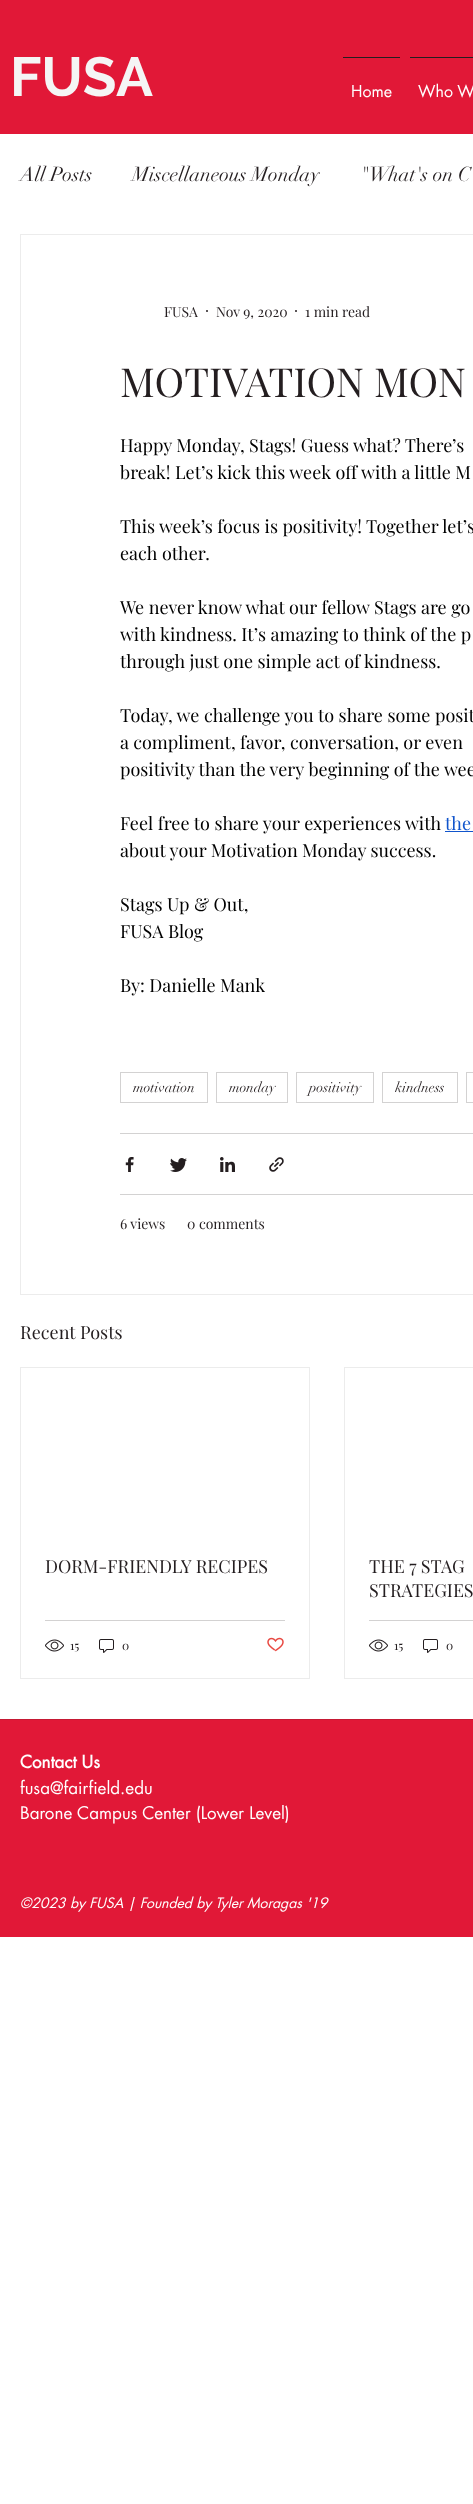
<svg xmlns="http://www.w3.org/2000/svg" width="473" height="2504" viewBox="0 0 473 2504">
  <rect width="100%" height="100%" fill="#ffffff"/>
  <rect x="0" y="0" width="473" height="134" fill="#e11837"/>
  <text x="10" y="96" font-family="Raleway" font-size="55" font-weight="bold" fill="#f5f5f5">FUSA</text>
  <rect x="343" y="57" width="57" height="1" fill="#241e20"/>
  <text x="351" y="97" font-family="futura" font-size="16" fill="#ffffff">Home</text>
  <rect x="410" y="57" width="63" height="1" fill="#241e20"/>
  <text x="418" y="97" font-family="futura" font-size="16" fill="#ffffff">Who W</text>
  <text x="20" y="181" font-family="didot" font-size="20" fill="#241e20">All Posts</text>
  <text x="132" y="181" font-family="didot" font-size="20" fill="#241e20">Miscellaneous Monday</text>
  <text x="360" y="181" font-family="didot" font-size="20" fill="#241e20">"What's on C</text>
  <rect x="20.5" y="234.5" width="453" height="1060" fill="none" stroke="#ececec"/>
  <text x="164" y="317" font-family="Playfair Display" font-size="14" fill="#241e20">FUSA</text>
  <circle cx="207" cy="311" r="1" fill="#241e20"/>
  <text x="216" y="317" font-family="Playfair Display" font-size="14" fill="#241e20">Nov 9, 2020</text>
  <circle cx="296" cy="311" r="1" fill="#241e20"/>
  <text x="305" y="317" font-family="Playfair Display" font-size="14" fill="#241e20">1 min read</text>
  <text x="120" y="397" font-family="Playfair Display" font-size="40" fill="#241e20">MOTIVATION MON</text>
  <text x="120" y="452" font-family="Playfair Display" font-size="18" fill="#000000">Happy Monday, Stags! Guess what? There’s</text>
  <text x="120" y="479" font-family="Playfair Display" font-size="18" fill="#000000">break! Let’s kick this week off with a little M</text>
  <text x="120" y="533" font-family="Playfair Display" font-size="18" fill="#000000">This week’s focus is positivity! Together let’s</text>
  <text x="120" y="560" font-family="Playfair Display" font-size="18" fill="#000000">each other.</text>
  <text x="120" y="614" font-family="Playfair Display" font-size="18" fill="#000000">We never know what our fellow Stags are go</text>
  <text x="120" y="641" font-family="Playfair Display" font-size="18" fill="#000000">with kindness. It’s amazing to think of the p</text>
  <text x="120" y="668" font-family="Playfair Display" font-size="18" fill="#000000">through just one simple act of kindness.</text>
  <text x="120" y="722" font-family="Playfair Display" font-size="18" fill="#000000">Today, we challenge you to share some posit</text>
  <text x="120" y="749" font-family="Playfair Display" font-size="18" fill="#000000">a compliment, favor, conversation, or even</text>
  <text x="120" y="776" font-family="Playfair Display" font-size="18" fill="#000000">positivity than the very beginning of the wee</text>
  <text x="120" y="830" font-family="Playfair Display" font-size="18" fill="#000000">Feel free to share your experiences with</text>
  <text x="445" y="830" font-family="Playfair Display" font-size="18" fill="#1155cc">the</text>
  <rect x="445" y="831" width="28" height="1" fill="#1155cc"/>
  <text x="120" y="857" font-family="Playfair Display" font-size="18" fill="#000000">about your Motivation Monday success.</text>
  <text x="120" y="911" font-family="Playfair Display" font-size="18" fill="#000000">Stags Up &amp; Out,</text>
  <text x="120" y="938" font-family="Playfair Display" font-size="18" fill="#000000">FUSA Blog</text>
  <text x="120" y="992" font-family="Playfair Display" font-size="18" fill="#000000">By: Danielle Mank</text>
  <rect x="120.5" y="1072.5" width="87" height="30" fill="none" stroke="#d3d2d2"/>
  <text x="133" y="1092" font-family="didot" font-size="14" fill="#241e20">motivation</text>
  <rect x="216.5" y="1072.5" width="71" height="30" fill="none" stroke="#d3d2d2"/>
  <text x="229" y="1092" font-family="didot" font-size="14" fill="#241e20">monday</text>
  <rect x="296.5" y="1072.5" width="77" height="30" fill="none" stroke="#d3d2d2"/>
  <text x="309" y="1092" font-family="didot" font-size="14" fill="#241e20">positivity</text>
  <rect x="382.5" y="1072.5" width="75" height="30" fill="none" stroke="#d3d2d2"/>
  <text x="395" y="1092" font-family="didot" font-size="14" fill="#241e20">kindness</text>
  <rect x="466.5" y="1072.5" width="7" height="30" fill="none" stroke="#d3d2d2"/>
  <rect x="120" y="1133" width="353" height="1" fill="#d3d2d2"/>
  <image x="125" y="1157" width="9" height="15" href="img1.png"/>
  <image x="170" y="1158" width="17" height="14" href="img2.png"/>
  <image x="220" y="1157" width="15" height="15" href="img3.png"/>
  <image x="269" y="1157" width="15" height="15" href="img4.png"/>
  <rect x="120" y="1194" width="353" height="1" fill="#d3d2d2"/>
  <text x="120" y="1229" font-family="Playfair Display" font-size="14" fill="#241e20">6 views</text>
  <text x="187" y="1229" font-family="Playfair Display" font-size="14" fill="#241e20">0 comments</text>
  <text x="20" y="1339" font-family="Playfair Display" font-size="18" fill="#241e20">Recent Posts</text>
  <rect x="20.5" y="1367.5" width="289" height="311" fill="none" stroke="#ececec"/>
  <text x="45" y="1573" font-family="Playfair Display" font-size="18" fill="#241e20">DORM-FRIENDLY RECIPES</text>
  <rect x="45" y="1620" width="240" height="1" fill="#d3d2d2"/>
  <image x="45" y="1639" width="19" height="13" href="img5.png"/>
  <text x="70" y="1650" font-family="Playfair Display" font-size="12" fill="#241e20">15</text>
  <image x="99" y="1639" width="15" height="14" href="img6.png"/>
  <text x="122" y="1650" font-family="Playfair Display" font-size="12" fill="#241e20">0</text>
  <image x="267" y="1637" width="17" height="15" href="img7.png"/>
  <rect x="344.5" y="1367.5" width="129" height="311" fill="none" stroke="#ececec"/>
  <text x="369" y="1573" font-family="Playfair Display" font-size="18" fill="#241e20">THE 7 STAG</text>
  <text x="369" y="1597" font-family="Playfair Display" font-size="18" fill="#241e20">STRATEGIES</text>
  <rect x="369" y="1620" width="104" height="1" fill="#d3d2d2"/>
  <image x="369" y="1639" width="19" height="13" href="img5.png"/>
  <text x="394" y="1650" font-family="Playfair Display" font-size="12" fill="#241e20">15</text>
  <image x="423" y="1639" width="15" height="14" href="img6.png"/>
  <text x="446" y="1650" font-family="Playfair Display" font-size="12" fill="#241e20">0</text>
  <rect x="0" y="1720" width="473" height="217" fill="#e11837"/>
  <rect x="0" y="1719" width="473" height="1" fill="#c51934"/>
  <text x="20" y="1768" font-family="futura" font-size="17" font-weight="bold" fill="#ffffff">Contact Us</text>
  <text x="20" y="1794" font-family="futura" font-size="17" fill="#ffffff">fusa@fairfield.edu</text>
  <text x="20" y="1819" font-family="futura" font-size="17" fill="#ffffff">Barone Campus Center (Lower Level)</text>
  <text x="20" y="1908" font-family="futura" font-size="14" font-style="italic" fill="#ffffff">©2023 by FUSA | Founded by Tyler Moragas '19</text>
</svg>
